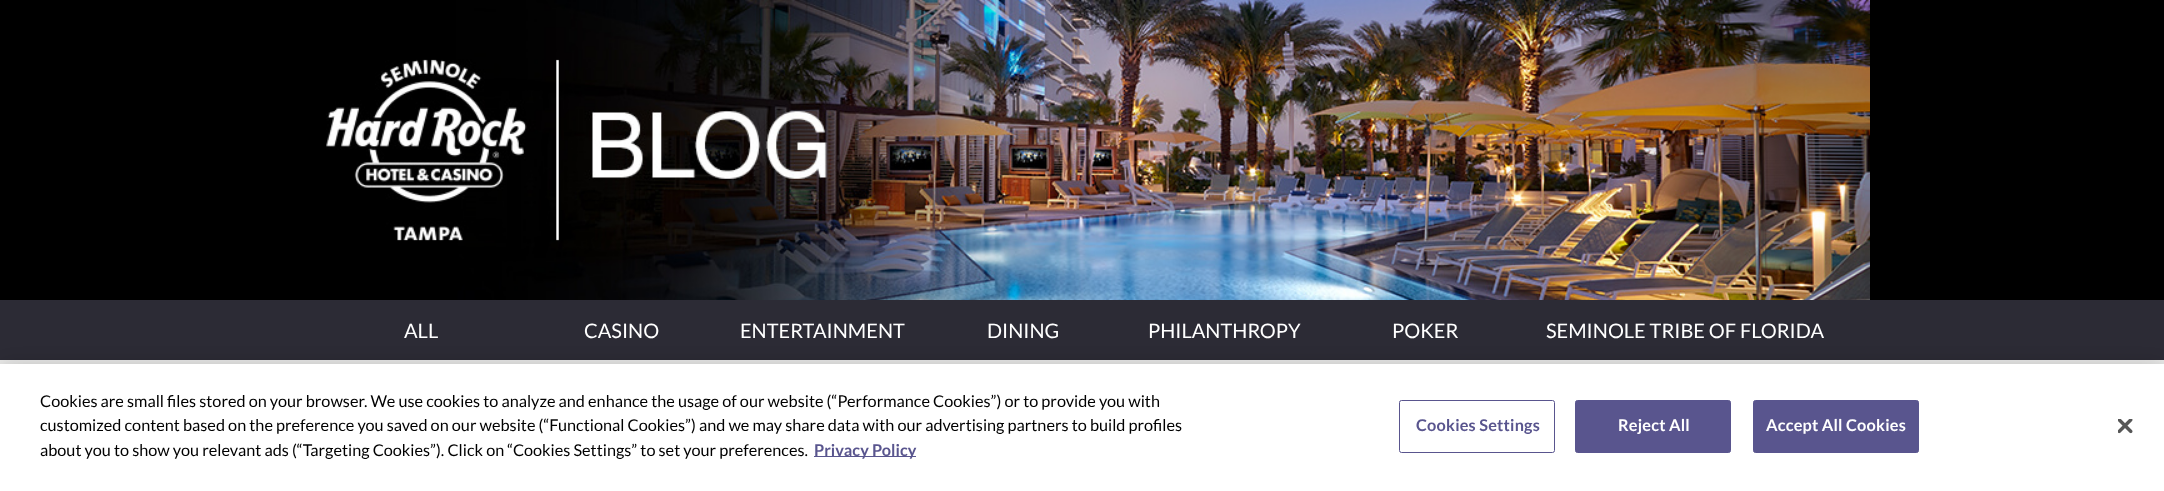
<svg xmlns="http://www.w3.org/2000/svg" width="2164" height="491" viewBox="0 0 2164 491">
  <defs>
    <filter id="blur1" x="-50%" y="-200%" width="200%" height="500%"><feGaussianBlur stdDeviation="11"/></filter>
  </defs>
  <rect width="100%" height="100%" fill="#ebebea"/>
  <rect x="0" y="0" width="2164" height="300" fill="#000000"/>
  <image x="326" y="0" width="1544" height="300" href="img1.png"/>
  <rect x="0" y="300" width="2164" height="60" fill="#2c2b35"/>
  <text x="404" y="338" font-family="Lato" font-size="20" fill="#ffffff">ALL</text>
  <text x="584" y="338" font-family="Lato" font-size="20" fill="#ffffff">CASINO</text>
  <text x="740" y="338" font-family="Lato" font-size="20" fill="#ffffff">ENTERTAINMENT</text>
  <text x="987" y="338" font-family="Lato" font-size="20" fill="#ffffff">DINING</text>
  <text x="1148" y="338" font-family="Lato" font-size="20" fill="#ffffff">PHILANTHROPY</text>
  <text x="1392" y="338" font-family="Lato" font-size="20" fill="#ffffff">POKER</text>
  <text x="1546" y="338" font-family="Lato" font-size="20" fill="#ffffff">SEMINOLE TRIBE OF FLORIDA</text>
  <rect x="0" y="364" width="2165" height="127" fill="#000000" fill-opacity="0.2" filter="url(#blur1)"/>
  <rect x="0" y="364" width="2164" height="127" fill="#ffffff"/>
  <text x="40" y="407" font-family="Lato" font-size="16.25" fill="#000000">Cookies are small files stored on your browser. We use cookies to analyze and enhance the usage of our website (“Performance Cookies”) or to provide you with</text>
  <text x="40" y="431" font-family="Lato" font-size="16.25" fill="#000000">customized content based on the preference you saved on our website (“Functional Cookies”) and we may share data with our advertising partners to build profiles</text>
  <text x="40" y="456" font-family="Lato" font-size="16.25" fill="#000000">about you to show you relevant ads (“Targeting Cookies”). Click on “Cookies Settings” to set your preferences.</text>
  <rect x="814" y="456" width="102" height="1" fill="#59558e"/>
  <text x="814" y="456" font-family="Lato" font-size="16.25" font-weight="bold" fill="#59558e">Privacy Policy</text>
  <rect x="1399.5" y="400.5" width="155" height="52" rx="2" fill="none" stroke="#59558e"/>
  <text x="1416" y="431" font-family="Lato" font-size="16.25" font-weight="bold" letter-spacing="0.2" fill="#59558e">Cookies Settings</text>
  <rect x="1575.5" y="400.5" width="155" height="52" rx="2" fill="#59558e" stroke="#59558e"/>
  <text x="1618" y="431" font-family="Lato" font-size="16.25" font-weight="bold" letter-spacing="0.2" fill="#ffffff">Reject All</text>
  <rect x="1753.5" y="400.5" width="165" height="52" rx="2" fill="#59558e" stroke="#59558e"/>
  <text x="1766" y="431" font-family="Lato" font-size="16.25" font-weight="bold" letter-spacing="0.2" fill="#ffffff">Accept All Cookies</text>
  <image x="2118" y="419" width="15" height="15" href="img2.png"/>
</svg>
